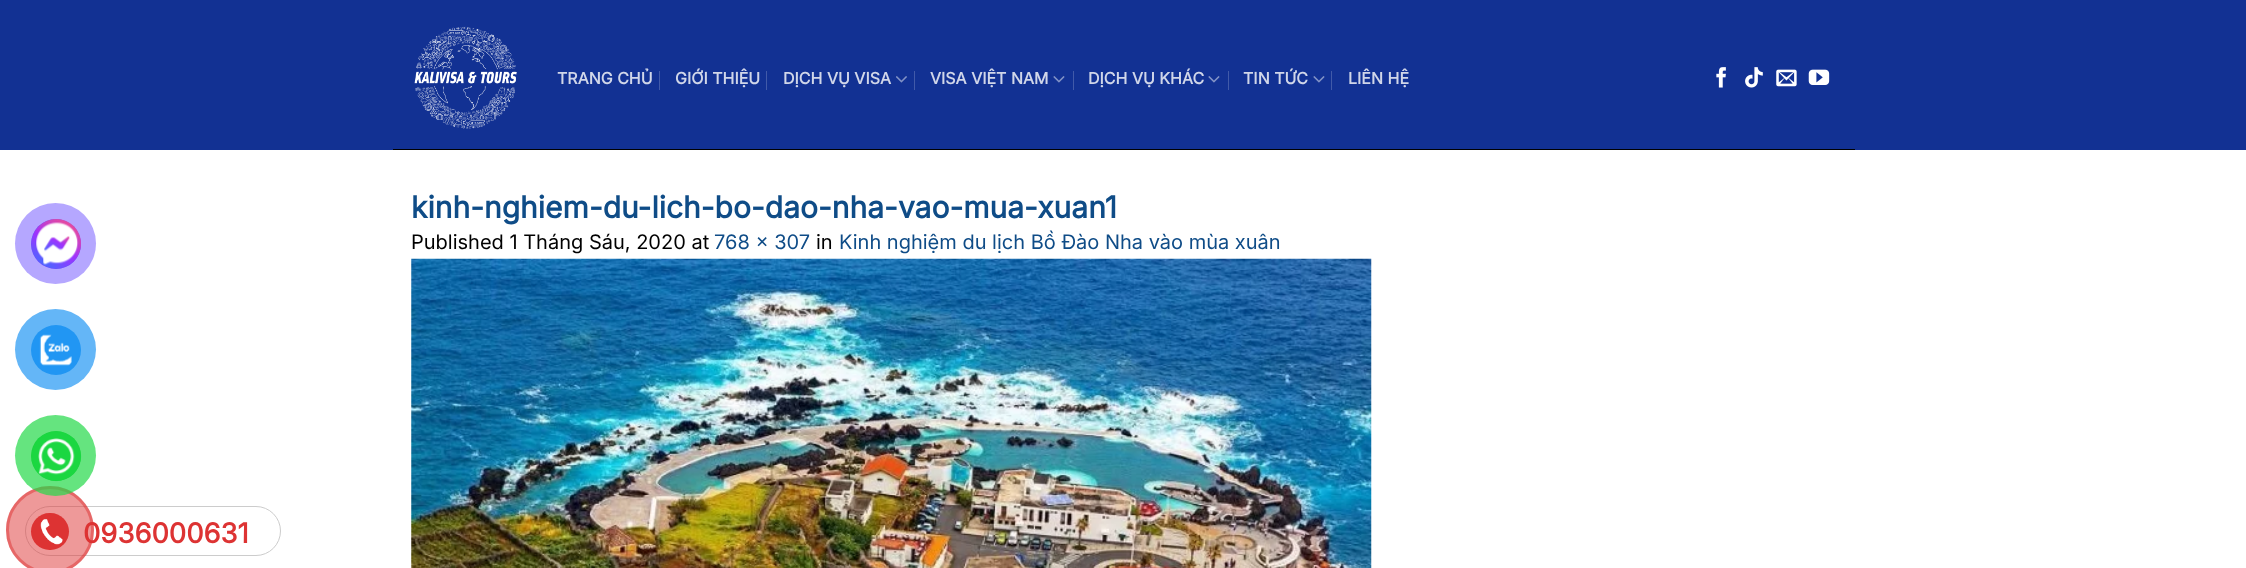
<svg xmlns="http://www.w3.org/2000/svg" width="2246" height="568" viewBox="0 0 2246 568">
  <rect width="100%" height="100%" fill="#ffffff"/>
  <rect x="0" y="0" width="2246" height="150" fill="#123193"/>
  <rect x="393" y="149" width="1462" height="1" fill="#000000"/>
  <image x="414" y="26" width="103" height="103" href="img1.png"/>
  <text x="557" y="84" font-family="Inter" font-size="16" font-weight="bold" fill="#d0d6e9">TRANG CHỦ</text>
  <rect x="659" y="71" width="1" height="19" fill="#415aa9"/>
  <text x="675" y="84" font-family="Inter" font-size="16" font-weight="bold" fill="#d0d6e9">GIỚI THIỆU</text>
  <rect x="766" y="71" width="1" height="19" fill="#415aa9"/>
  <text x="783" y="84" font-family="Inter" font-size="16" font-weight="bold" fill="#d0d6e9">DỊCH VỤ VISA</text>
  <image x="896" y="76" width="11" height="7" href="img2.png"/>
  <rect x="914" y="71" width="1" height="19" fill="#415aa9"/>
  <text x="930" y="84" font-family="Inter" font-size="16" font-weight="bold" fill="#d0d6e9">VISA VIỆT NAM</text>
  <image x="1053" y="76" width="12" height="7" href="img3.png"/>
  <rect x="1073" y="71" width="1" height="19" fill="#415aa9"/>
  <text x="1088" y="84" font-family="Inter" font-size="16" font-weight="bold" fill="#d0d6e9">DỊCH VỤ KHÁC</text>
  <image x="1208" y="76" width="12" height="7" href="img3.png"/>
  <rect x="1228" y="71" width="1" height="19" fill="#415aa9"/>
  <text x="1243" y="84" font-family="Inter" font-size="16" font-weight="bold" fill="#d0d6e9">TIN TỨC</text>
  <image x="1313" y="76" width="12" height="7" href="img3.png"/>
  <rect x="1331" y="71" width="1" height="19" fill="#415aa9"/>
  <text x="1348" y="84" font-family="Inter" font-size="16" font-weight="bold" fill="#d0d6e9">LIÊN HỆ</text>
  <image x="1716" y="67" width="10" height="21" href="img4.png"/>
  <image x="1745" y="67" width="18" height="21" href="img5.png"/>
  <image x="1776" y="69" width="21" height="18" href="img6.png"/>
  <image x="1808" y="69" width="22" height="16" href="img7.png"/>
  <text x="411" y="218" font-family="Inter" font-size="30" font-weight="bold" fill="#0f4c87">kinh-nghiem-du-lich-bo-dao-nha-vao-mua-xuan1</text>
  <text x="411" y="249" font-family="Inter" font-size="20" fill="#000000">Published 1 Tháng Sáu, 2020 at</text>
  <text x="714" y="249" font-family="Inter" font-size="20" fill="#0f4c87">768 × 307</text>
  <text x="816" y="249" font-family="Inter" font-size="20" fill="#000000">in</text>
  <text x="839" y="249" font-family="Inter" font-size="20" fill="#0f4c87">Kinh nghiệm du lịch Bồ Đào Nha vào mùa xuân</text>
  <image x="411" y="258" width="961" height="310" href="img8.png"/>
  <circle cx="55.5" cy="243.5" r="40.5" fill="#b5a7ff"/>
  <circle cx="56" cy="244" r="25" fill="#6a4ffe"/>
  <image x="31" y="219" width="50" height="50" href="img9.png"/>
  <circle cx="55.5" cy="349.5" r="40.5" fill="#64b6f7"/>
  <circle cx="56" cy="350" r="25" fill="#2196f3"/>
  <image x="39" y="334" width="33" height="32" href="img10.png"/>
  <rect x="25.5" y="506.5" width="255" height="49" rx="24.5" fill="none" stroke="#cccccc"/>
  <text x="83" y="543" font-family="Inter" font-size="27.5" font-weight="bold" fill="#dd3333">0936000631</text>
  <circle cx="50" cy="530" r="44" fill="#dd3333" fill-opacity="0.5"/>
  <circle cx="50" cy="530" r="42.5" fill="none" stroke="#dd3333" stroke-opacity="0.5" stroke-width="3"/>
  <circle cx="55.5" cy="455.5" r="40.5" fill="#23d948" fill-opacity="0.7"/>
  <circle cx="56" cy="456" r="25" fill="#1cd741"/>
  <image x="31" y="431" width="51" height="51" href="img11.png"/>
  <rect x="31" y="513" width="38" height="37" rx="18.5" fill="#dd3333"/>
  <image x="40" y="519" width="23" height="26" href="img12.png"/>
</svg>
